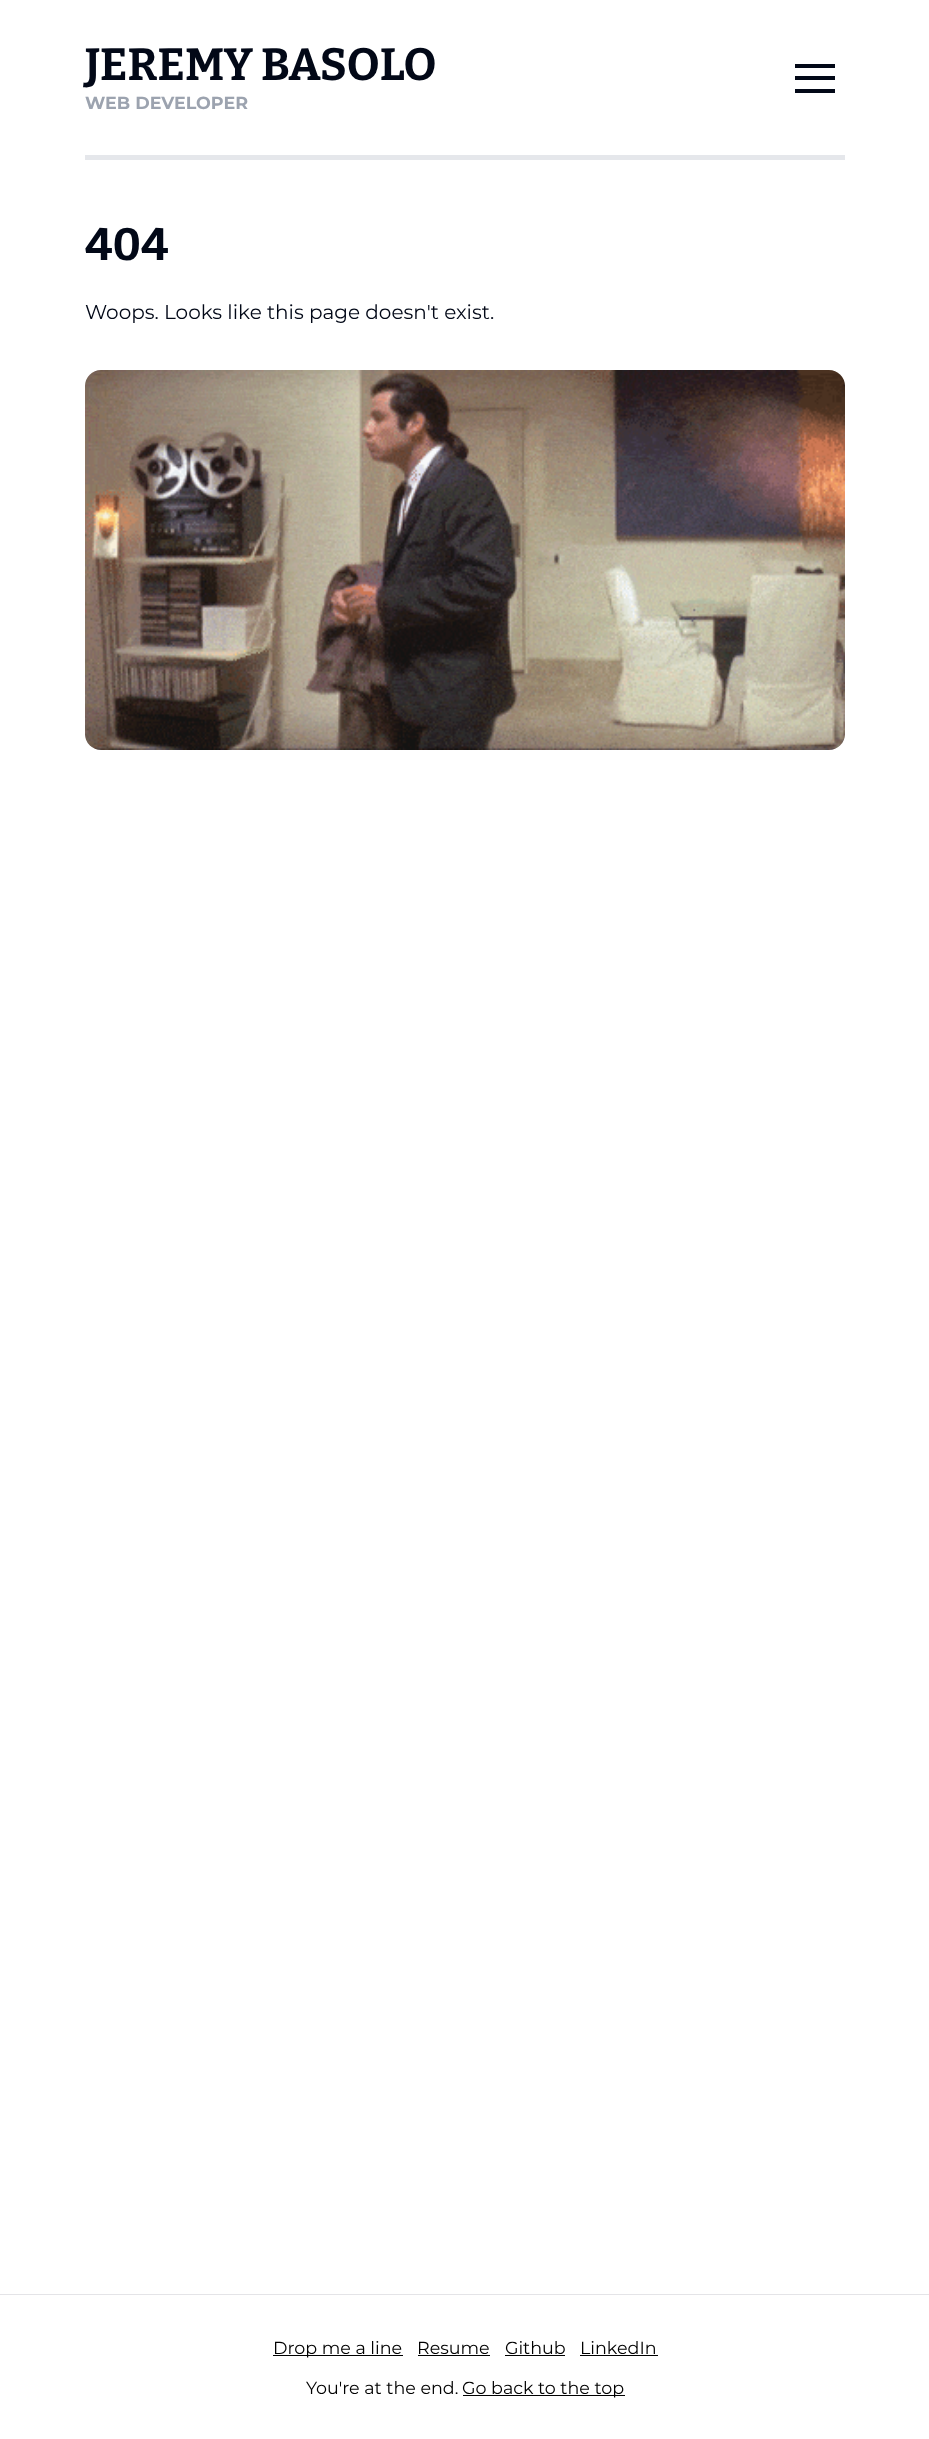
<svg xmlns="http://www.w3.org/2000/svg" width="929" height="2439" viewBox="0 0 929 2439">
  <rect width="100%" height="100%" fill="#ffffff"/>
  <rect x="85" y="155" width="760" height="5" fill="#e5e7eb"/>
  <text x="85" y="80" font-family="Bitter" font-size="45" font-weight="bold" fill="#020817">JEREMY BASOLO</text>
  <text x="85" y="109" font-family="Montserrat" font-size="17.5" font-weight="bold" fill="#9ca3af">WEB DEVELOPER</text>
  <rect x="795" y="64" width="40" height="4" fill="#020817"/>
  <rect x="795" y="76" width="40" height="4" fill="#020817"/>
  <rect x="795" y="89" width="40" height="4" fill="#020817"/>
  <text x="85" y="260" font-family="Bitter" font-size="45" font-weight="bold" fill="#020817">404</text>
  <text x="85" y="319" font-family="Montserrat" font-size="20" fill="#020817">Woops. Looks like this page doesn't exist.</text>
  <image x="85" y="370" width="760" height="380" href="img1.png"/>
  <rect x="0" y="2294" width="929" height="1" fill="#e4e4e7"/>
  <rect x="273" y="2355" width="130" height="1" fill="#000000"/>
  <text x="273" y="2354" font-family="Montserrat" font-size="17.5" fill="#000000">Drop me a line</text>
  <text x="417" y="2354" font-family="Montserrat" font-size="17.5" fill="#000000">Resume</text>
  <rect x="418" y="2355" width="72" height="1" fill="#000000"/>
  <text x="505" y="2354" font-family="Montserrat" font-size="17.5" fill="#000000">Github</text>
  <rect x="505" y="2355" width="60" height="1" fill="#000000"/>
  <text x="580" y="2354" font-family="Montserrat" font-size="17.5" fill="#000000">LinkedIn</text>
  <rect x="580" y="2355" width="78" height="1" fill="#000000"/>
  <text x="306" y="2394" font-family="Montserrat" font-size="17.5" fill="#000000">You're at the end.</text>
  <rect x="463" y="2395" width="162" height="1" fill="#000000"/>
  <text x="462" y="2394" font-family="Montserrat" font-size="17.5" fill="#000000">Go back to the top</text>
</svg>
